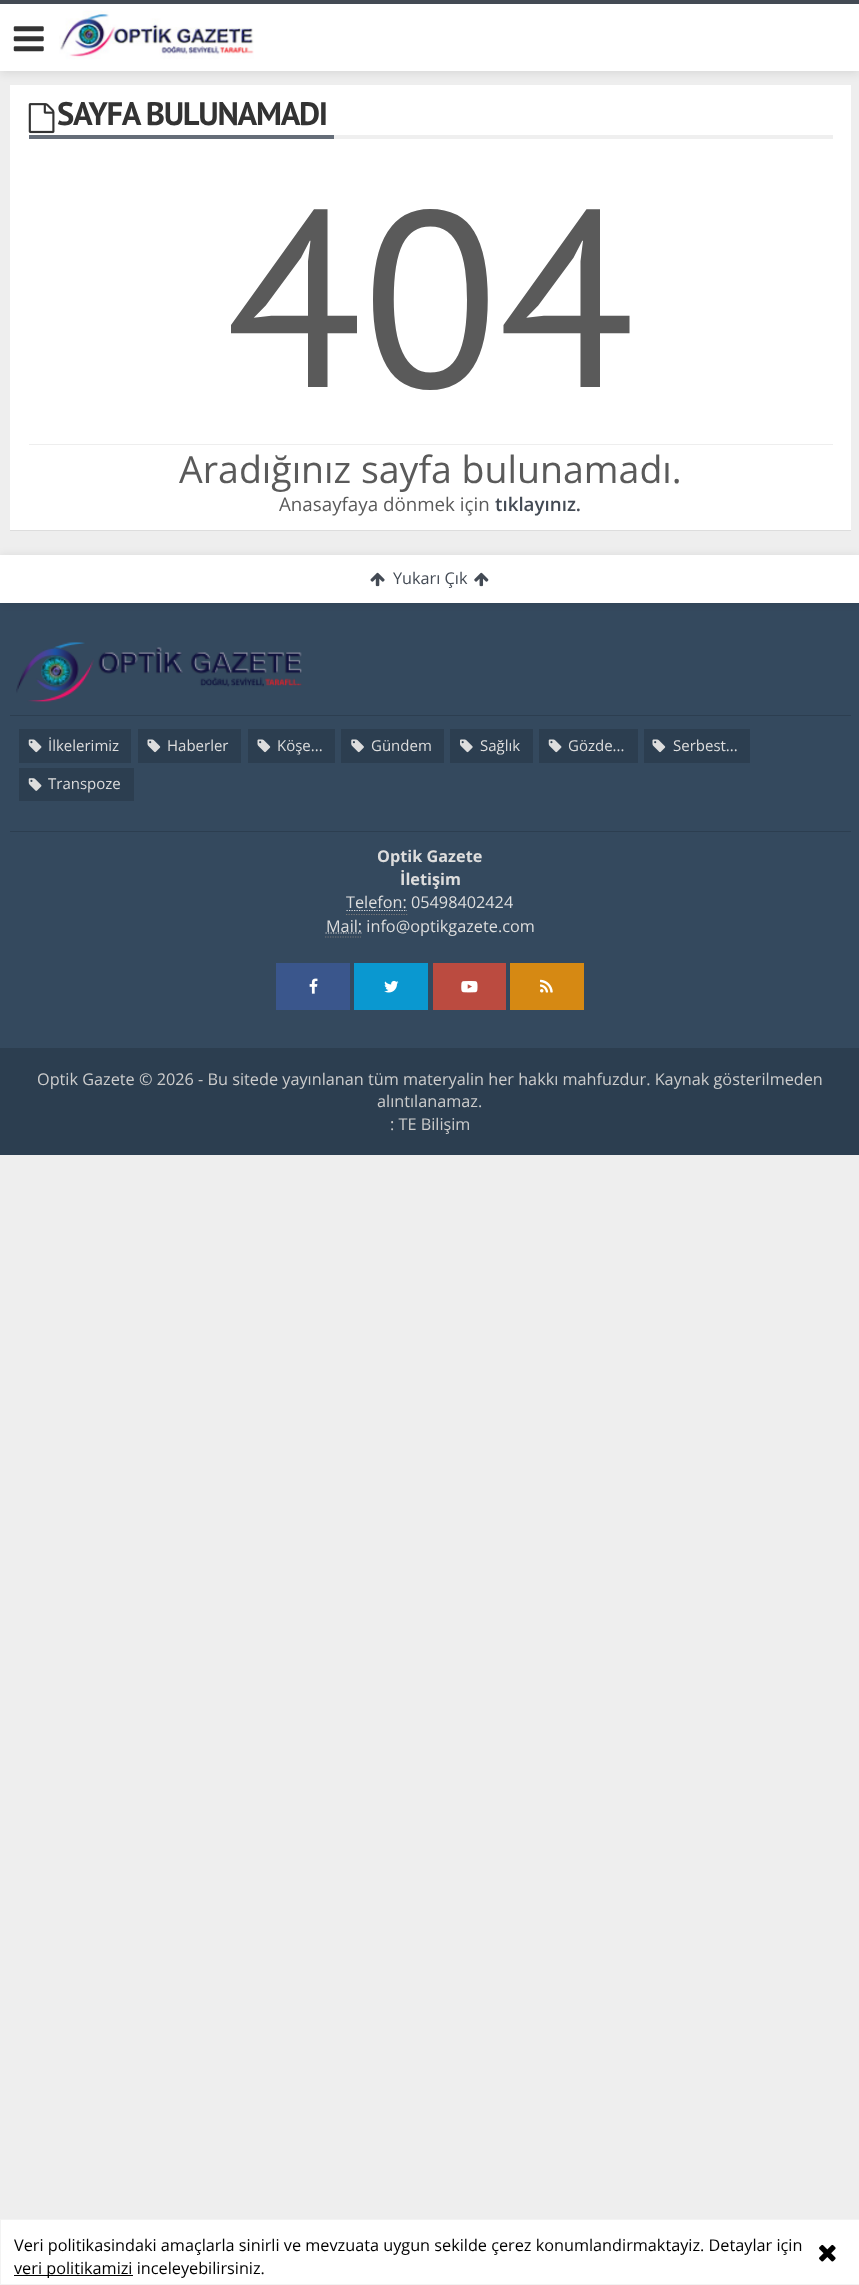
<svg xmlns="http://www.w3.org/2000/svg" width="859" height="2285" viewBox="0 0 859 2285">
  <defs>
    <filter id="blur1" x="-50%" y="-200%" width="200%" height="500%"><feGaussianBlur stdDeviation="0.5"/></filter>
    <filter id="blur2" x="-50%" y="-200%" width="200%" height="500%"><feGaussianBlur stdDeviation="5"/></filter>
  </defs>
  <rect width="100%" height="100%" fill="#eeeeee"/>
  <rect x="10" y="86" width="841" height="445" fill="#000000" fill-opacity="0.07" filter="url(#blur1)"/>
  <rect x="10" y="85" width="841" height="445" fill="#ffffff"/>
  <rect x="0" y="1" width="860" height="72" fill="#000000" fill-opacity="0.1" filter="url(#blur2)"/>
  <rect x="0" y="4" width="859" height="67" fill="#ffffff"/>
  <rect x="0" y="0" width="859" height="4" fill="#434a54"/>
  <image x="13" y="26" width="31" height="26" href="img1.png"/>
  <image x="59" y="10" width="195" height="50" href="img2.png"/>
  <rect x="334" y="135" width="499" height="4" fill="#efefef"/>
  <rect x="29" y="135" width="305" height="4" fill="#656d78"/>
  <image x="28" y="103" width="27" height="31" href="img3.png"/>
  <text x="57" y="125" font-family="PT Sans" font-size="32.5" font-weight="bold" letter-spacing="-1.25" fill="#333333">SAYFA BULUNAMADI</text>
  <text x="226" y="387" font-family="PT Sans" font-size="250" fill="#5a5a5a">404</text>
  <rect x="29" y="444" width="804" height="1" fill="#eeeeee"/>
  <text x="179" y="483" font-family="Open Sans" font-size="37.5" fill="#5a5a5a">Aradığınız sayfa bulunamadı.</text>
  <text x="279" y="511" font-family="Open Sans" font-size="18.75" fill="#5a5a5a">Anasayfaya dönmek için</text>
  <text x="495" y="511" font-family="Open Sans" font-size="18.75" font-weight="600" fill="#434a54">tıklayınız.</text>
  <rect x="0" y="603" width="859" height="445" fill="#34495e"/>
  <rect x="0" y="556" width="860" height="48" fill="#000000" fill-opacity="0.1" filter="url(#blur2)"/>
  <rect x="0" y="555" width="859" height="48" fill="#ffffff"/>
  <image x="370" y="572" width="15" height="15" href="img4.png"/>
  <text x="393" y="584" font-family="Open Sans" font-size="16.25" fill="#434a54">Yukarı Çık</text>
  <image x="474" y="572" width="15" height="15" href="img5.png"/>
  <image x="16" y="642" width="286" height="61" href="img6.png"/>
  <rect x="10" y="715" width="841" height="1" fill="#2c3e50"/>
  <rect x="19" y="729" width="112" height="34" fill="#2c3e50"/>
  <image x="28" y="739" width="14" height="14" href="img7.png"/>
  <text x="48" y="751" font-family="Open Sans" font-size="15" fill="#dddddd">İlkelerimiz</text>
  <rect x="138" y="729" width="103" height="34" fill="#2c3e50"/>
  <image x="147" y="739" width="14" height="14" href="img8.png"/>
  <text x="167" y="751" font-family="Open Sans" font-size="15" fill="#dddddd">Haberler</text>
  <rect x="248" y="729" width="87" height="34" fill="#2c3e50"/>
  <image x="257" y="739" width="14" height="14" href="img8.png"/>
  <text x="277" y="751" font-family="Open Sans" font-size="15" fill="#dddddd">Köşe...</text>
  <rect x="341" y="729" width="103" height="34" fill="#2c3e50"/>
  <image x="351" y="739" width="13" height="14" href="img9.png"/>
  <text x="371" y="751" font-family="Open Sans" font-size="15" fill="#dddddd">Gündem</text>
  <rect x="450" y="729" width="83" height="34" fill="#2c3e50"/>
  <image x="460" y="739" width="13" height="14" href="img10.png"/>
  <text x="480" y="751" font-family="Open Sans" font-size="15" fill="#dddddd">Sağlık</text>
  <rect x="539" y="729" width="99" height="34" fill="#2c3e50"/>
  <image x="548" y="739" width="14" height="14" href="img7.png"/>
  <text x="568" y="751" font-family="Open Sans" font-size="15" fill="#dddddd">Gözde...</text>
  <rect x="644" y="729" width="106" height="34" fill="#2c3e50"/>
  <image x="652" y="739" width="14" height="14" href="img8.png"/>
  <text x="673" y="751" font-family="Open Sans" font-size="15" fill="#dddddd">Serbest...</text>
  <rect x="19" y="768" width="115" height="33" fill="#2c3e50"/>
  <image x="28" y="778" width="14" height="13" href="img11.png"/>
  <text x="48" y="789" font-family="Open Sans" font-size="15" fill="#dddddd">Transpoze</text>
  <rect x="10" y="831" width="841" height="1" fill="#2c3e50"/>
  <text x="377" y="862" font-family="Open Sans" font-size="16.25" font-weight="bold" fill="#dddddd">Optik Gazete</text>
  <text x="400" y="885" font-family="Open Sans" font-size="16.25" font-weight="bold" fill="#dddddd">İletişim</text>
  <text x="346" y="908" font-family="Open Sans" font-size="16.25" fill="#dddddd">Telefon: 05498402424</text>
  <path d="M346 914.5H407.5" fill="none" stroke="#777777" stroke-width="1.2" stroke-dasharray="1.25 1.25"/>
  <path d="M346.5 910.5H407" fill="none" stroke="#dddddd" stroke-width="1.2" stroke-dasharray="1.25 1.25"/>
  <path d="M325.5 933H361.5" fill="none" stroke="#dddddd" stroke-width="1.2" stroke-dasharray="1.25 1.25"/>
  <text x="326" y="932" font-family="Open Sans" font-size="16.25" fill="#dddddd">Mail: info@optikgazete.com</text>
  <path d="M325 937H361" fill="none" stroke="#777777" stroke-width="1.2" stroke-dasharray="1.25 1.25"/>
  <rect x="276" y="963" width="74" height="47" fill="#3a568c"/>
  <image x="309" y="978" width="9" height="16" href="img12.png"/>
  <rect x="354" y="963" width="74" height="47" fill="#0a98d0"/>
  <image x="384" y="980" width="15" height="13" href="img13.png"/>
  <rect x="433" y="963" width="73" height="47" fill="#bb4b40"/>
  <image x="461" y="981" width="17" height="12" href="img14.png"/>
  <rect x="510" y="963" width="74" height="47" fill="#d68913"/>
  <image x="540" y="979" width="13" height="14" href="img15.png"/>
  <rect x="0" y="1048" width="859" height="107" fill="#2c3e50"/>
  <text x="37" y="1085" font-family="Open Sans" font-size="16.25" fill="#cccccc">Optik Gazete © 2026 - Bu sitede yayınlanan tüm materyalin her hakkı mahfuzdur. Kaynak gösterilmeden</text>
  <text x="377" y="1107" font-family="Open Sans" font-size="16.25" fill="#cccccc">alıntılanamaz.</text>
  <text x="390" y="1130" font-family="Open Sans" font-size="16.25" fill="#cccccc">: TE Bilişim</text>
  <rect x="0.5" y="2219.5" width="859" height="65" fill="#ffffff" stroke="#f3f3f3"/>
  <text x="14" y="2251" font-family="Open Sans" font-size="16.25" fill="#000000">Veri politikasindaki amaçlarla sinirli ve mevzuata uygun sekilde çerez konumlandirmaktayiz. Detaylar için</text>
  <image x="819" y="2244" width="17" height="18" href="img16.png"/>
  <rect x="14" y="2275" width="119" height="1" fill="#000000"/>
  <text x="14" y="2274" font-family="Open Sans" font-size="16.25" fill="#000000">veri politikamizi inceleyebilirsiniz.</text>
</svg>
